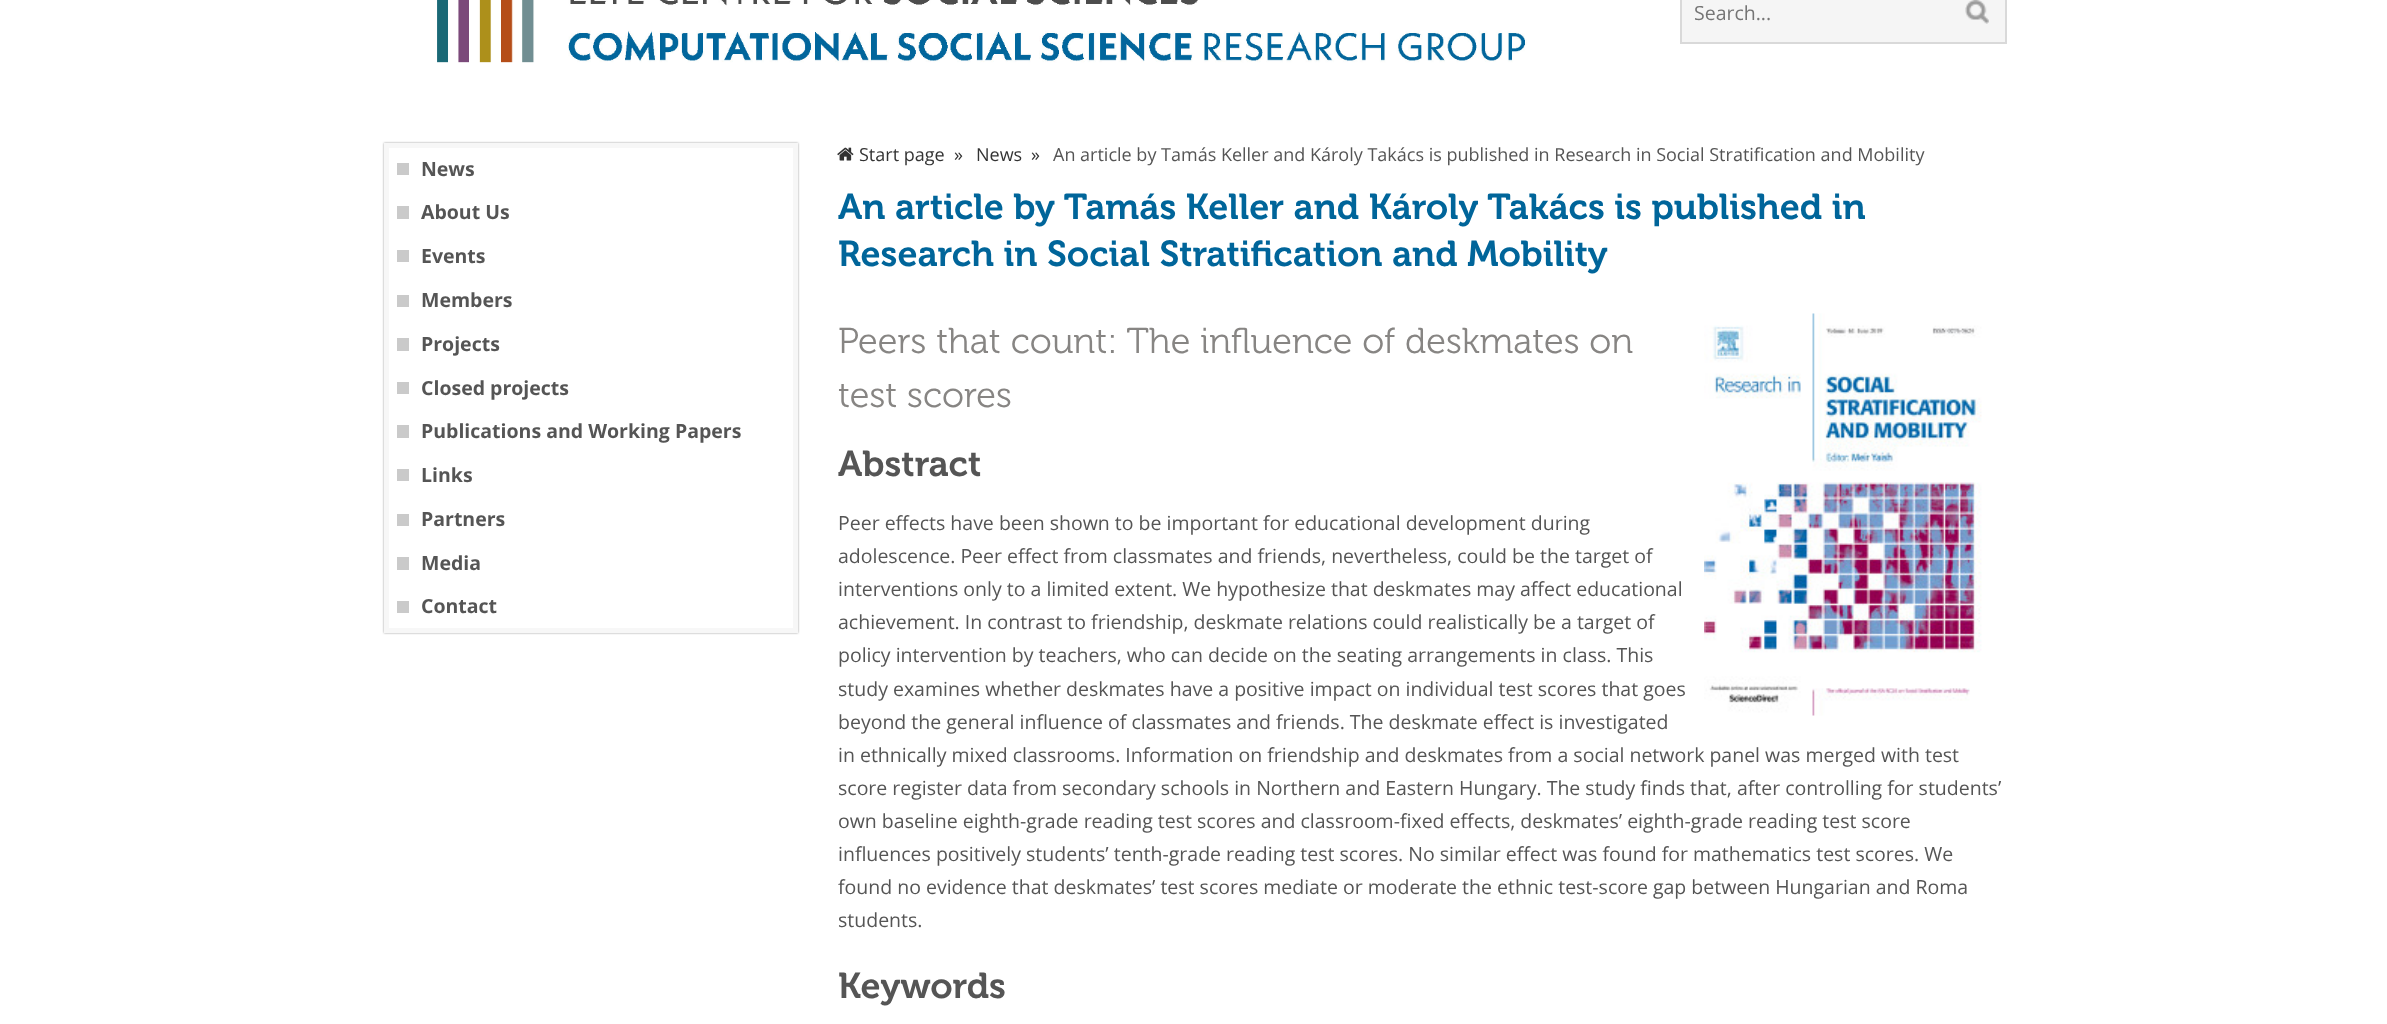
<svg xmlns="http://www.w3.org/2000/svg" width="2387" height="1024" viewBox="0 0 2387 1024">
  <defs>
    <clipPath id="clip1"><path d="M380 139H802V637H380ZM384 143H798V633H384Z" clip-rule="evenodd"/></clipPath>
    <filter id="blur1" x="-50%" y="-200%" width="200%" height="500%"><feGaussianBlur stdDeviation="1"/></filter>
  </defs>
  <rect width="100%" height="100%" fill="#ffffff"/>
  <image x="437" y="0" width="1090" height="63" href="img1.png"/>
  <rect x="1681" y="-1" width="325" height="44" fill="#f5f5f5" stroke="#d9d9d9" stroke-width="2"/>
  <text x="1694" y="20" font-family="Open Sans" font-size="19.5" fill="#757575">Search...</text>
  <image x="1965" y="0" width="24" height="24" href="img2.png"/>
  <g clip-path="url(#clip1)">
    <rect x="384" y="143" width="414" height="490" fill="#999999" filter="url(#blur1)"/>
  </g>
  <rect x="386.5" y="145.5" width="409" height="485" fill="none" stroke="#f7f7f7" stroke-width="5"/>
  <rect x="397" y="163" width="12" height="12" fill="#cacaca"/>
  <text x="421" y="176" font-family="Open Sans" font-size="19.5" font-weight="bold" fill="#555555">News</text>
  <rect x="397" y="206" width="12" height="13" fill="#cacaca"/>
  <text x="421" y="219" font-family="Open Sans" font-size="19.5" font-weight="bold" fill="#555555">About Us</text>
  <rect x="397" y="250" width="12" height="12" fill="#cacaca"/>
  <text x="421" y="263" font-family="Open Sans" font-size="19.5" font-weight="bold" fill="#555555">Events</text>
  <rect x="397" y="295" width="12" height="12" fill="#cacaca"/>
  <text x="421" y="307" font-family="Open Sans" font-size="19.5" font-weight="bold" fill="#555555">Members</text>
  <rect x="397" y="338" width="12" height="13" fill="#cacaca"/>
  <text x="421" y="351" font-family="Open Sans" font-size="19.5" font-weight="bold" fill="#555555">Projects</text>
  <rect x="397" y="382" width="12" height="12" fill="#cacaca"/>
  <text x="421" y="395" font-family="Open Sans" font-size="19.5" font-weight="bold" fill="#555555">Closed projects</text>
  <rect x="397" y="425" width="12" height="13" fill="#cacaca"/>
  <text x="421" y="438" font-family="Open Sans" font-size="19.5" font-weight="bold" fill="#555555">Publications and Working Papers</text>
  <rect x="397" y="469" width="12" height="12" fill="#cacaca"/>
  <text x="421" y="482" font-family="Open Sans" font-size="19.5" font-weight="bold" fill="#555555">Links</text>
  <rect x="397" y="514" width="12" height="12" fill="#cacaca"/>
  <text x="421" y="526" font-family="Open Sans" font-size="19.5" font-weight="bold" fill="#555555">Partners</text>
  <rect x="397" y="557" width="12" height="13" fill="#cacaca"/>
  <text x="421" y="570" font-family="Open Sans" font-size="19.5" font-weight="bold" fill="#555555">Media</text>
  <rect x="397" y="601" width="12" height="12" fill="#cacaca"/>
  <text x="421" y="613" font-family="Open Sans" font-size="19.5" font-weight="bold" fill="#555555">Contact</text>
  <image x="837" y="147" width="17" height="14" href="img3.png"/>
  <text x="859" y="161" font-family="Open Sans" font-size="18" fill="#333333">Start page</text>
  <text x="954" y="161" font-family="Open Sans" font-size="18" fill="#333333">»</text>
  <text x="976" y="161" font-family="Open Sans" font-size="18" fill="#333333">News</text>
  <text x="1031" y="161" font-family="Open Sans" font-size="18" fill="#333333">»</text>
  <text x="1053" y="161" font-family="Open Sans" font-size="18" fill="#555555">An article by Tamás Keller and Károly Takács is published in Research in Social Stratification and Mobility</text>
  <text x="838" y="219" font-family="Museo" font-size="36" fill="#00659a">An article by Tamás Keller and Károly Takács is published in</text>
  <text x="838" y="266" font-family="Museo" font-size="36" fill="#00659a">Research in Social Stratification and Mobility</text>
  <image x="1704" y="313" width="278" height="403" href="img4.png"/>
  <text x="838" y="353" font-family="'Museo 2'" font-size="36" fill="#878583">Peers that count: The influence of deskmates on</text>
  <text x="838" y="407" font-family="'Museo 2'" font-size="36" fill="#878583">test scores</text>
  <text x="838" y="476" font-family="Museo" font-size="36" fill="#555555">Abstract</text>
  <text x="838" y="530" font-family="Open Sans" font-size="19.5" fill="#555555">Peer effects have been shown to be important for educational development during</text>
  <text x="838" y="563" font-family="Open Sans" font-size="19.5" fill="#555555">adolescence. Peer effect from classmates and friends, nevertheless, could be the target of</text>
  <text x="838" y="596" font-family="Open Sans" font-size="19.5" fill="#555555">interventions only to a limited extent. We hypothesize that deskmates may affect educational</text>
  <text x="838" y="629" font-family="Open Sans" font-size="19.5" fill="#555555">achievement. In contrast to friendship, deskmate relations could realistically be a target of</text>
  <text x="838" y="662" font-family="Open Sans" font-size="19.5" fill="#555555">policy intervention by teachers, who can decide on the seating arrangements in class. This</text>
  <text x="838" y="696" font-family="Open Sans" font-size="19.5" fill="#555555">study examines whether deskmates have a positive impact on individual test scores that goes</text>
  <text x="838" y="729" font-family="Open Sans" font-size="19.5" fill="#555555">beyond the general influence of classmates and friends. The deskmate effect is investigated</text>
  <text x="838" y="762" font-family="Open Sans" font-size="19.5" fill="#555555">in ethnically mixed classrooms. Information on friendship and deskmates from a social network panel was merged with test</text>
  <text x="838" y="795" font-family="Open Sans" font-size="19.5" fill="#555555">score register data from secondary schools in Northern and Eastern Hungary. The study finds that, after controlling for students’</text>
  <text x="838" y="828" font-family="Open Sans" font-size="19.5" fill="#555555">own baseline eighth-grade reading test scores and classroom-fixed effects, deskmates’ eighth-grade reading test score</text>
  <text x="838" y="861" font-family="Open Sans" font-size="19.5" fill="#555555">influences positively students’ tenth-grade reading test scores. No similar effect was found for mathematics test scores. We</text>
  <text x="838" y="894" font-family="Open Sans" font-size="19.5" fill="#555555">found no evidence that deskmates’ test scores mediate or moderate the ethnic test-score gap between Hungarian and Roma</text>
  <text x="838" y="927" font-family="Open Sans" font-size="19.5" fill="#555555">students.</text>
  <text x="838" y="998" font-family="Museo" font-size="36" fill="#555555">Keywords</text>
</svg>
